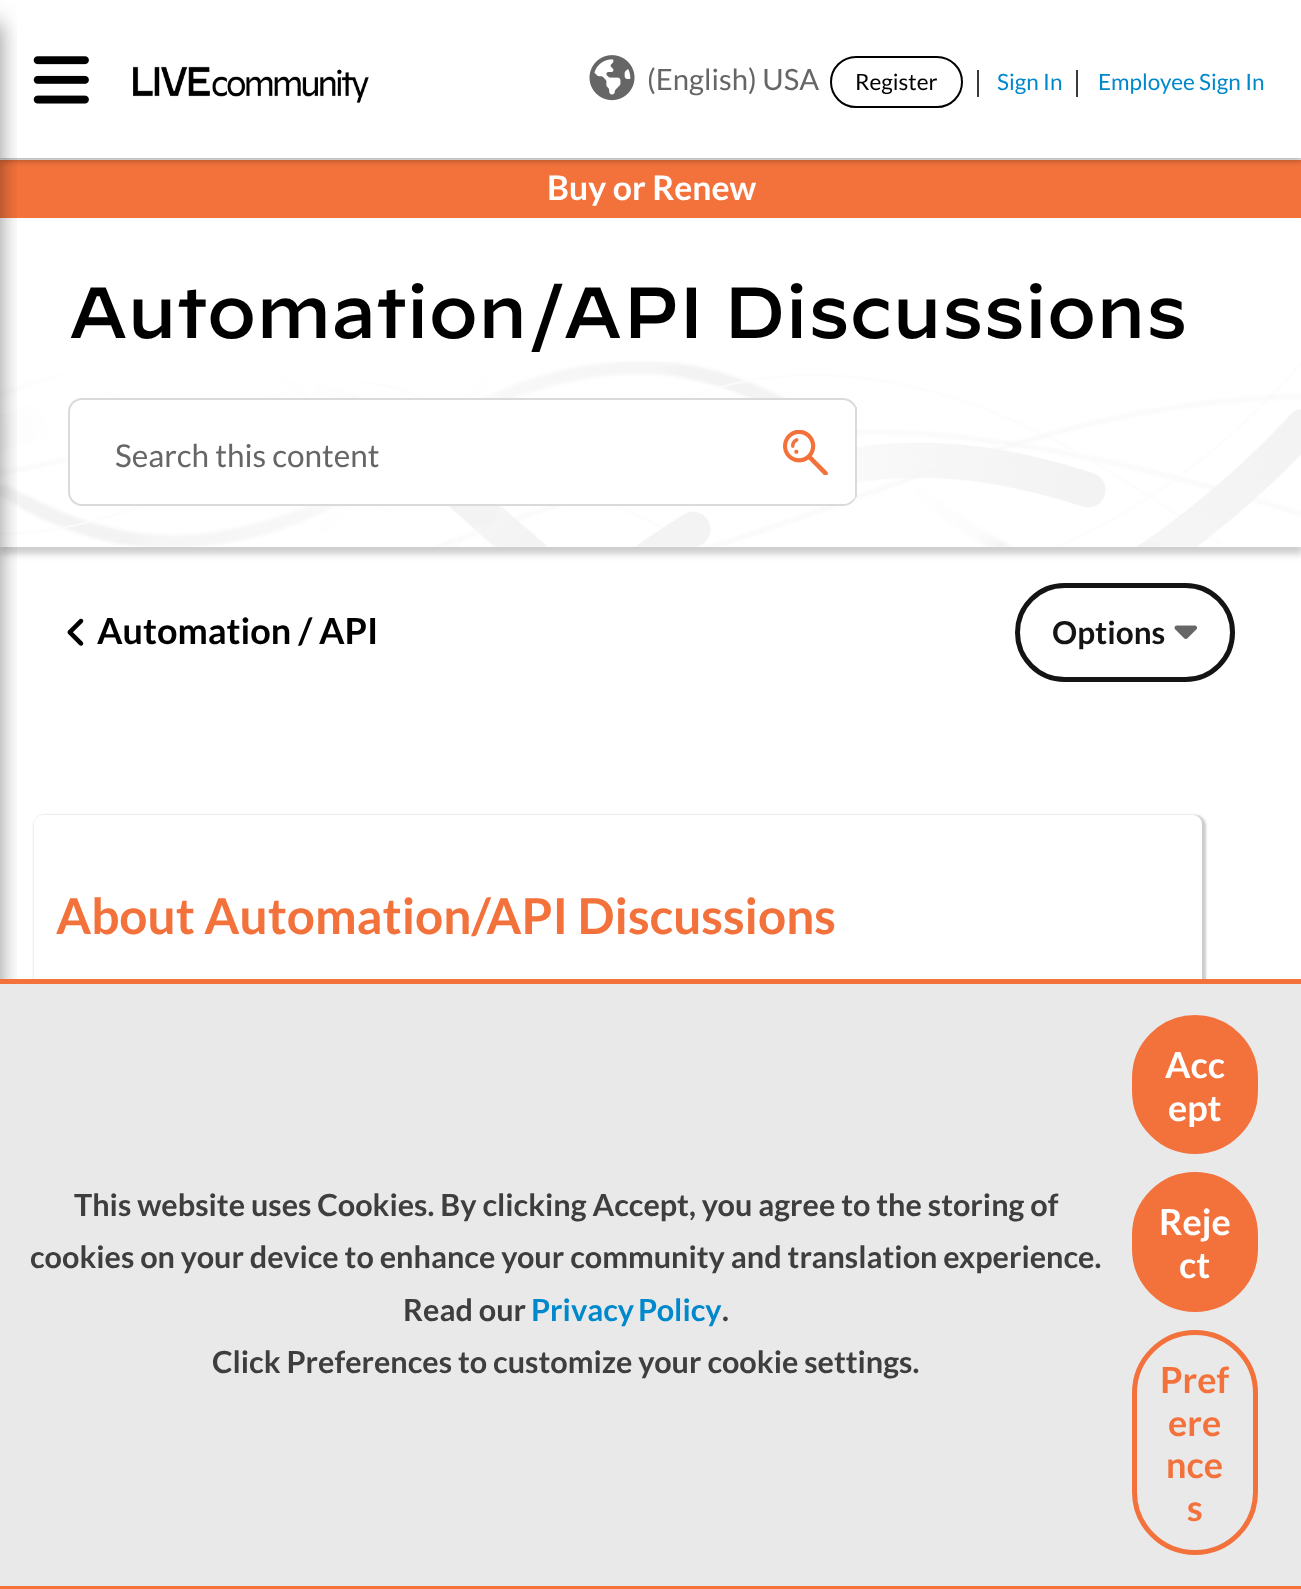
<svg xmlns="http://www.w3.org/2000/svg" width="1301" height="1589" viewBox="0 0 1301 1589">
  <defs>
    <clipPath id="clip1"><path d="M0 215H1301V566H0ZM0 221H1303V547H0Z" clip-rule="evenodd"/></clipPath>
    <filter id="blur1" x="-50%" y="-200%" width="200%" height="500%"><feGaussianBlur stdDeviation="3.5"/></filter>
    <filter id="blur2" x="-50%" y="-200%" width="200%" height="500%"><feGaussianBlur stdDeviation="11"/></filter>
    <filter id="blur3" x="-50%" y="-200%" width="200%" height="500%"><feGaussianBlur stdDeviation="1"/></filter>
  </defs>
  <rect width="100%" height="100%" fill="#ffffff"/>
  <g clip-path="url(#clip1)">
    <rect x="0" y="227" width="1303" height="327" fill="#cccccc" filter="url(#blur1)"/>
  </g>
  <rect x="0" y="160" width="1301" height="58" fill="#f3723c"/>
  <rect x="0" y="2" width="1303" height="158" fill="#000000" fill-opacity="0.36" filter="url(#blur1)"/>
  <rect x="0" y="0" width="1301" height="158" fill="#ffffff"/>
  <image x="33" y="56" width="56" height="48" href="img1.png"/>
  <image x="0" y="361" width="1301" height="186" href="img4.png"/>
  <rect x="-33" y="23" width="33" height="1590" fill="#000000" fill-opacity="0.45" filter="url(#blur2)"/>
  <image x="133" y="66" width="236" height="37" href="img2.png"/>
  <image x="589" y="55" width="46" height="46" href="img3.png"/>
  <text x="647" y="90" font-family="Lato" font-size="29.25" fill="#666666">(English) USA</text>
  <rect x="831" y="57" width="131" height="50" rx="25" fill="none" stroke="#000000" stroke-width="2"/>
  <text x="855" y="90" font-family="Lato" font-size="22.5" fill="#000000">Register</text>
  <rect x="977" y="70" width="2" height="27" fill="#3a3a3c"/>
  <text x="997" y="90" font-family="Lato" font-size="22.5" fill="#0088cc">Sign In</text>
  <rect x="1076" y="70" width="2" height="27" fill="#3a3a3c"/>
  <text x="1098" y="90" font-family="Lato" font-size="22.5" fill="#0088cc">Employee Sign In</text>
  <text x="547" y="200" font-family="Lato" font-size="33.75" font-weight="bold" fill="#ffffff">Buy or Renew</text>
  <text x="68" y="338" font-family="'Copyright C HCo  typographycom'" font-size="72" font-weight="300" fill="#000000">Automation/API Discussions</text>
  <rect x="69" y="399" width="787" height="106" rx="13" fill="#ffffff" stroke="#dadada" stroke-width="2"/>
  <text x="115" y="467" font-family="Lato" font-size="31.5" fill="#666666">Search this content</text>
  <path d="M754 401H843C850.5 401 857 407.5 857 415V490C857 497.5 850.5 504 843 504H754Z" fill="#ffffff"/>
  <image x="783" y="430" width="45" height="45" href="img5.png"/>
  <rect x="855" y="407" width="2" height="90" fill="#dadada"/>
  <image x="67" y="618" width="17" height="28" href="img6.png"/>
  <text x="97" y="644" font-family="Lato" font-size="36" font-weight="bold" fill="#000000">Automation / API</text>
  <rect x="1017.5" y="585.5" width="215" height="94" rx="47" fill="none" stroke="#141414" stroke-width="5"/>
  <text x="1052" y="644" font-family="Lato" font-size="31.5" font-weight="bold" fill="#141414">Options</text>
  <image x="1174" y="625" width="23" height="14" href="img7.png"/>
  <rect x="34" y="815" width="1172" height="459" rx="11" fill="#cccccc" filter="url(#blur3)"/>
  <rect x="34" y="815" width="1168" height="454" rx="9" fill="#ffffff"/>
  <text x="56" y="934" font-family="Lato" font-size="49.5" font-weight="bold" fill="#f3723c">About Automation/API Discussions</text>
  <rect x="0" y="984" width="1301" height="602" fill="#e9e9e9"/>
  <rect x="0" y="979" width="1301" height="5" fill="#f3723c"/>
  <rect x="0" y="1586" width="1301" height="3" fill="#f3723c"/>
  <text x="74" y="1216" font-family="Lato" font-size="30.6" font-weight="bold" fill="#3e3e3e">This website uses Cookies. By clicking Accept, you agree to the storing of</text>
  <text x="30" y="1268" font-family="Lato" font-size="30.6" font-weight="bold" fill="#3e3e3e">cookies on your device to enhance your community and translation experience.</text>
  <text x="403" y="1321" font-family="Lato" font-size="30.6" font-weight="bold" fill="#3e3e3e">Read our</text>
  <text x="531" y="1321" word-spacing="-2" font-family="Lato" font-size="30.6" font-weight="bold" fill="#0088cc">Privacy Policy</text>
  <text x="722" y="1321" font-family="Lato" font-size="30.6" font-weight="bold" fill="#3e3e3e">.</text>
  <text x="212" y="1373" font-family="Lato" font-size="30.6" font-weight="bold" fill="#3e3e3e">Click Preferences to customize your cookie settings.</text>
  <rect x="1134.5" y="1017.5" width="121" height="134" rx="60.5" fill="#f3723c" stroke="#f3723c" stroke-width="5"/>
  <text x="1165" y="1078" font-family="Lato" font-size="36" font-weight="bold" fill="#ffffff">Acc</text>
  <text x="1168" y="1121" font-family="Lato" font-size="36" font-weight="bold" fill="#ffffff">ept</text>
  <rect x="1134.5" y="1174.5" width="121" height="135" rx="60.5" fill="#f3723c" stroke="#f3723c" stroke-width="5"/>
  <text x="1159" y="1235" font-family="Lato" font-size="36" font-weight="bold" fill="#ffffff">Reje</text>
  <text x="1179" y="1278" font-family="Lato" font-size="36" font-weight="bold" fill="#ffffff">ct</text>
  <rect x="1134.5" y="1332.5" width="121" height="220" rx="60.5" fill="none" stroke="#f3723c" stroke-width="5"/>
  <text x="1160" y="1393" font-family="Lato" font-size="36" font-weight="bold" fill="#f3723c">Pref</text>
  <text x="1168" y="1436" font-family="Lato" font-size="36" font-weight="bold" fill="#f3723c">ere</text>
  <text x="1166" y="1478" font-family="Lato" font-size="36" font-weight="bold" fill="#f3723c">nce</text>
  <text x="1187" y="1521" font-family="Lato" font-size="36" font-weight="bold" fill="#f3723c">s</text>
</svg>
